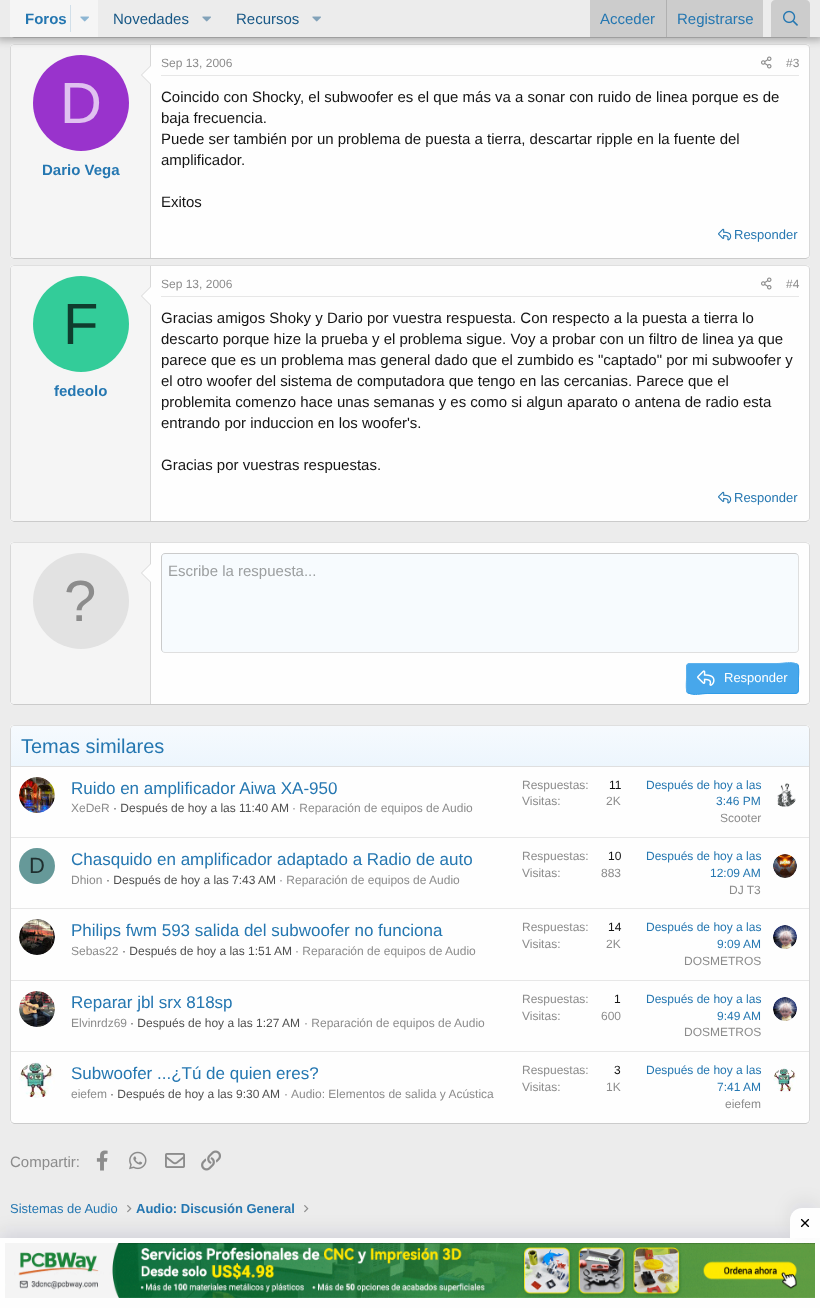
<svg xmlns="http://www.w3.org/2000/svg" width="820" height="1308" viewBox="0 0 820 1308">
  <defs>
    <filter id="blur1" x="-50%" y="-200%" width="200%" height="500%"><feGaussianBlur stdDeviation="4"/></filter>
    <linearGradient id="g1" gradientUnits="userSpaceOnUse" x1="410" y1="766" x2="410" y2="726"><stop offset="0" stop-color="#edf6fd"/><stop offset="1" stop-color="#f6fafe"/></linearGradient>
    <filter id="blur2" x="-50%" y="-200%" width="200%" height="500%"><feGaussianBlur stdDeviation="9"/></filter>
  </defs>
  <rect width="100%" height="100%" fill="#ececec"/>
  <rect x="10" y="-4" width="800" height="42" rx="4" fill="#fefefe"/>
  <path d="M808.5 36.5L806 37.5H14L11.5 36.5" fill="none" stroke="#cbcbcb"/>
  <rect x="10" y="44" width="800" height="215" rx="4" fill="#fefefe"/>
  <path d="M11.5 45.5L14 44.5H806L808.5 45.5" fill="none" stroke="#dfdfdf"/>
  <path d="M808.5 45.5C809 46 809.5 47 809.5 48V255C809.5 256 809 257 808.5 257.5" fill="none" stroke="#d8d8d8"/>
  <path d="M808.5 257.5L806 258.5H14L11.5 257.5" fill="none" stroke="#cbcbcb"/>
  <path d="M11.5 257.5C11 257 10.5 256 10.5 255V48C10.5 47 11 46 11.5 45.5" fill="none" stroke="#d8d8d8"/>
  <path d="M14 45H151V258H14C12.5 258 11 256.5 11 255V48C11 46.5 12.5 45 14 45Z" fill="#f5f5f5"/>
  <rect x="150" y="45" width="1" height="213" fill="#d8d8d8"/>
  <rect x="-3" y="-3" width="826" height="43" fill="#000000" fill-opacity="0.3" filter="url(#blur1)"/>
  <rect x="0" y="0" width="820" height="37" fill="#ececec"/>
  <rect x="10" y="0" width="88" height="37" fill="#f5f5f5"/>
  <text x="25" y="24" font-family="Liberation Sans" font-size="15" font-weight="bold" fill="#2577b1">Foros</text>
  <rect x="70" y="5" width="1" height="27" fill="#d1dfe9"/>
  <image x="80" y="16" width="9" height="6" href="img1.png"/>
  <text x="113" y="24" font-family="Liberation Sans" font-size="15" fill="#185886">Novedades</text>
  <image x="202" y="16" width="9" height="6" href="img2.png"/>
  <text x="236" y="24" font-family="Liberation Sans" font-size="15" fill="#185886">Recursos</text>
  <image x="312" y="16" width="9" height="6" href="img2.png"/>
  <rect x="590" y="0" width="173" height="37" fill="#cccccc"/>
  <text x="600" y="24" font-family="Liberation Sans" font-size="15" fill="#2577b1">Acceder</text>
  <rect x="666" y="0" width="1" height="37" fill="#b0b0b0"/>
  <text x="677" y="24" font-family="Liberation Sans" font-size="15" fill="#2577b1">Registrarse</text>
  <path d="M775 0H806C808 0 810 2 810 4V37H771V4C771 2 773 0 775 0Z" fill="#cccccc"/>
  <image x="783" y="10" width="15" height="16" href="img3.png"/>
  <path d="M151 65V85L141 75Z" fill="#d8d8d8"/>
  <path d="M151 66V84L142 75Z" fill="#fefefe"/>
  <circle cx="81" cy="103" r="48" fill="#9933cc"/>
  <text x="60" y="123" font-family="Liberation Sans" font-size="58" fill="#e0c2f0">D</text>
  <text x="42" y="175" font-family="Liberation Sans" font-size="15" font-weight="bold" fill="#2577b1">Dario Vega</text>
  <rect x="161" y="75" width="638" height="1" fill="#e7e7e7"/>
  <text x="161" y="67" font-family="Liberation Sans" font-size="12" fill="#8c8c8c">Sep 13, 2006</text>
  <image x="761" y="56" width="11" height="13" href="img4.png"/>
  <text x="786" y="67" font-family="Liberation Sans" font-size="12" fill="#8c8c8c">#3</text>
  <text x="161" y="102" font-family="Liberation Sans" font-size="15" fill="#141414">Coincido con Shocky, el subwoofer es el que más va a sonar con ruido de linea porque es de</text>
  <text x="161" y="123" font-family="Liberation Sans" font-size="15" fill="#141414">baja frecuencia.</text>
  <text x="161" y="144" font-family="Liberation Sans" font-size="15" fill="#141414">Puede ser también por un problema de puesta a tierra, descartar ripple en la fuente del</text>
  <text x="161" y="165" font-family="Liberation Sans" font-size="15" fill="#141414">amplificador.</text>
  <text x="161" y="207" font-family="Liberation Sans" font-size="15" fill="#141414">Exitos</text>
  <image x="718" y="228" width="14" height="13" href="img5.png"/>
  <text x="734" y="239" font-family="Liberation Sans" font-size="13" fill="#2577b1">Responder</text>
  <rect x="10" y="265" width="800" height="257" rx="4" fill="#fefefe"/>
  <path d="M11.5 266.5L14 265.5H806L808.5 266.5" fill="none" stroke="#dfdfdf"/>
  <path d="M808.5 266.5C809 267 809.5 268 809.5 269V518C809.5 519 809 520 808.5 520.5" fill="none" stroke="#d8d8d8"/>
  <path d="M808.5 520.5L806 521.5H14L11.5 520.5" fill="none" stroke="#cbcbcb"/>
  <path d="M11.5 520.5C11 520 10.5 519 10.5 518V269C10.5 268 11 267 11.5 266.5" fill="none" stroke="#d8d8d8"/>
  <path d="M14 266H151V521H14C12.5 521 11 519.5 11 518V269C11 267.5 12.5 266 14 266Z" fill="#f5f5f5"/>
  <rect x="150" y="266" width="1" height="255" fill="#d8d8d8"/>
  <path d="M151 286V306L141 296Z" fill="#d8d8d8"/>
  <path d="M151 287V305L142 296Z" fill="#fefefe"/>
  <circle cx="81" cy="324" r="48" fill="#33cc99"/>
  <text x="63" y="344" font-family="Liberation Sans" font-size="58" fill="#0f3d2e">F</text>
  <text x="54" y="396" font-family="Liberation Sans" font-size="15" font-weight="bold" fill="#2577b1">fedeolo</text>
  <rect x="161" y="296" width="638" height="1" fill="#e7e7e7"/>
  <text x="161" y="288" font-family="Liberation Sans" font-size="12" fill="#8c8c8c">Sep 13, 2006</text>
  <image x="761" y="277" width="11" height="13" href="img4.png"/>
  <text x="786" y="288" font-family="Liberation Sans" font-size="12" fill="#8c8c8c">#4</text>
  <text x="161" y="323" font-family="Liberation Sans" font-size="15" fill="#141414">Gracias amigos Shoky y Dario por vuestra respuesta. Con respecto a la puesta a tierra lo</text>
  <text x="161" y="344" font-family="Liberation Sans" font-size="15" fill="#141414">descarto porque hize la prueba y el problema sigue. Voy a probar con un filtro de linea ya que</text>
  <text x="161" y="365" font-family="Liberation Sans" font-size="15" fill="#141414">parece que es un problema mas general dado que el zumbido es "captado" por mi subwoofer y</text>
  <text x="161" y="386" font-family="Liberation Sans" font-size="15" fill="#141414">el otro woofer del sistema de computadora que tengo en las cercanias. Parece que el</text>
  <text x="161" y="407" font-family="Liberation Sans" font-size="15" fill="#141414">problemita comenzo hace unas semanas y es como si algun aparato o antena de radio esta</text>
  <text x="161" y="428" font-family="Liberation Sans" font-size="15" fill="#141414">entrando por induccion en los woofer's.</text>
  <text x="161" y="470" font-family="Liberation Sans" font-size="15" fill="#141414">Gracias por vuestras respuestas.</text>
  <image x="718" y="491" width="14" height="13" href="img5.png"/>
  <text x="734" y="502" font-family="Liberation Sans" font-size="13" fill="#2577b1">Responder</text>
  <rect x="10" y="542" width="800" height="163" rx="4" fill="#fefefe"/>
  <path d="M11.5 543.5L14 542.5H806L808.5 543.5" fill="none" stroke="#dfdfdf"/>
  <path d="M808.5 543.5C809 544 809.5 545 809.5 546V701C809.5 702 809 703 808.5 703.5" fill="none" stroke="#d8d8d8"/>
  <path d="M808.5 703.5L806 704.5H14L11.5 703.5" fill="none" stroke="#cbcbcb"/>
  <path d="M11.5 703.5C11 703 10.5 702 10.5 701V546C10.5 545 11 544 11.5 543.5" fill="none" stroke="#d8d8d8"/>
  <path d="M14 543H151V704H14C12.5 704 11 702.5 11 701V546C11 544.5 12.5 543 14 543Z" fill="#f5f5f5"/>
  <rect x="150" y="543" width="1" height="161" fill="#d8d8d8"/>
  <path d="M151 563V583L141 573Z" fill="#d8d8d8"/>
  <path d="M151 564V582L142 573Z" fill="#fefefe"/>
  <circle cx="81" cy="601" r="48" fill="#e2e2e2"/>
  <text x="64" y="621" font-family="Liberation Sans" font-size="58" fill="#8c8c8c">?</text>
  <rect x="161" y="553" width="638" height="100" rx="4" fill="#f7fbfe"/>
  <path d="M797.5 554.5C798 555 798.5 556 798.5 557V649C798.5 650 798 651 797.5 651.5C797 652 796 652.5 795 652.5H165C164 652.5 163 652 162.5 651.5" fill="none" stroke="#dfdfdf"/>
  <path d="M162.5 651.5C162 651 161.5 650 161.5 649V557C161.5 556 162 555 162.5 554.5C163 554 164 553.5 165 553.5H795C796 553.5 797 554 797.5 554.5" fill="none" stroke="#cbcbcb"/>
  <text x="168" y="576" font-family="Liberation Sans" font-size="15" fill="#9c9fa0">Escribe la respuesta...</text>
  <rect x="686" y="663" width="113" height="31" rx="4" fill="#47a7eb"/>
  <path d="M797.5 664.5C799.5 667 798.5 675.5 798.5 678.5V686C798.5 689 799 693.5 795 693.5H707.5C701 693.5 694 696 688.5 693L687.5 692.5" fill="none" stroke="#309ce8"/>
  <path d="M687.5 692.5C685.5 690 686.5 681.5 686.5 678.5V671C686.5 668 686 663.5 690 663.5H777.5C784 663.5 791 661 796.5 664L797.5 664.5" fill="none" stroke="#5eb2ed"/>
  <image x="697" y="670" width="18" height="16" href="img6.png"/>
  <text x="724" y="682" font-family="Liberation Sans" font-size="13" fill="#ffffff">Responder</text>
  <rect x="10" y="725" width="800" height="399" rx="4" fill="#fefefe"/>
  <path d="M11.5 726.5L14 725.5H806L808.5 726.5" fill="none" stroke="#dfdfdf"/>
  <path d="M808.5 726.5L809.5 729V1120L808.5 1122.5" fill="none" stroke="#d8d8d8"/>
  <path d="M808.5 1122.5L806 1123.5H14L11.5 1122.5" fill="none" stroke="#cbcbcb"/>
  <path d="M11.5 1122.5L10.5 1120V729L11.5 726.5" fill="none" stroke="#d8d8d8"/>
  <path d="M14 726H806C807.5 726 809 727.5 809 729V766H11V729C11 727.5 12.5 726 14 726Z" fill="url(#g1)"/>
  <rect x="11" y="766" width="798" height="1" fill="#dfdfdf"/>
  <text x="21" y="753" font-family="Liberation Sans" font-size="20" fill="#2577b1">Temas similares</text>
  <image x="19" y="777" width="36" height="36" href="img7.png"/>
  <text x="71" y="794" font-family="Liberation Sans" font-size="17" fill="#2577b1">Ruido en amplificador Aiwa XA-950</text>
  <text x="71" y="812" font-family="Liberation Sans" font-size="12" fill="#8c8c8c">XeDeR</text>
  <text x="113" y="812" font-family="Liberation Sans" font-size="12" fill="#505050">· Después de hoy a las 11:40 AM</text>
  <text x="292" y="812" font-family="Liberation Sans" font-size="12" fill="#8c8c8c">· Reparación de equipos de Audio</text>
  <text x="522" y="789" font-family="Liberation Sans" font-size="12" fill="#8c8c8c">Respuestas:</text>
  <text x="609" y="789" font-family="Liberation Sans" font-size="12" fill="#141414">11</text>
  <text x="522" y="805" font-family="Liberation Sans" font-size="12" fill="#8c8c8c">Visitas:</text>
  <text x="606" y="805" font-family="Liberation Sans" font-size="12" fill="#8c8c8c">2K</text>
  <text x="646" y="789" font-family="Liberation Sans" font-size="12" fill="#2577b1">Después de hoy a las</text>
  <text x="716" y="805" font-family="Liberation Sans" font-size="12" fill="#2577b1">3:46 PM</text>
  <text x="720" y="822" font-family="Liberation Sans" font-size="12" fill="#8c8c8c">Scooter</text>
  <image x="777" y="783" width="19" height="24" href="img8.png"/>
  <rect x="11" y="837" width="798" height="1" fill="#e7e7e7"/>
  <circle cx="37" cy="866" r="18" fill="#669999"/>
  <text x="29" y="873" font-family="Liberation Sans" font-size="22" fill="#1f2e2e">D</text>
  <text x="71" y="865" font-family="Liberation Sans" font-size="17" fill="#2577b1">Chasquido en amplificador adaptado a Radio de auto</text>
  <text x="71" y="884" font-family="Liberation Sans" font-size="12" fill="#8c8c8c">Dhion</text>
  <text x="106" y="884" font-family="Liberation Sans" font-size="12" fill="#505050">· Después de hoy a las 7:43 AM</text>
  <text x="279" y="884" font-family="Liberation Sans" font-size="12" fill="#8c8c8c">· Reparación de equipos de Audio</text>
  <text x="522" y="860" font-family="Liberation Sans" font-size="12" fill="#8c8c8c">Respuestas:</text>
  <text x="608" y="860" font-family="Liberation Sans" font-size="12" fill="#141414">10</text>
  <text x="522" y="877" font-family="Liberation Sans" font-size="12" fill="#8c8c8c">Visitas:</text>
  <text x="601" y="877" font-family="Liberation Sans" font-size="12" fill="#8c8c8c">883</text>
  <text x="646" y="860" font-family="Liberation Sans" font-size="12" fill="#2577b1">Después de hoy a las</text>
  <text x="710" y="877" font-family="Liberation Sans" font-size="12" fill="#2577b1">12:09 AM</text>
  <text x="729" y="894" font-family="Liberation Sans" font-size="12" fill="#8c8c8c">DJ T3</text>
  <image x="773" y="854" width="24" height="24" href="img9.png"/>
  <rect x="11" y="908" width="798" height="1" fill="#e7e7e7"/>
  <image x="19" y="919" width="36" height="36" href="img10.png"/>
  <text x="71" y="936" font-family="Liberation Sans" font-size="17" fill="#2577b1">Philips fwm 593 salida del subwoofer no funciona</text>
  <text x="71" y="955" font-family="Liberation Sans" font-size="12" fill="#8c8c8c">Sebas22</text>
  <text x="122" y="955" font-family="Liberation Sans" font-size="12" fill="#505050">· Después de hoy a las 1:51 AM</text>
  <text x="295" y="955" font-family="Liberation Sans" font-size="12" fill="#8c8c8c">· Reparación de equipos de Audio</text>
  <text x="522" y="931" font-family="Liberation Sans" font-size="12" fill="#8c8c8c">Respuestas:</text>
  <text x="608" y="931" font-family="Liberation Sans" font-size="12" fill="#141414">14</text>
  <text x="522" y="948" font-family="Liberation Sans" font-size="12" fill="#8c8c8c">Visitas:</text>
  <text x="606" y="948" font-family="Liberation Sans" font-size="12" fill="#8c8c8c">2K</text>
  <text x="646" y="931" font-family="Liberation Sans" font-size="12" fill="#2577b1">Después de hoy a las</text>
  <text x="717" y="948" font-family="Liberation Sans" font-size="12" fill="#2577b1">9:09 AM</text>
  <text x="684" y="965" font-family="Liberation Sans" font-size="12" fill="#8c8c8c">DOSMETROS</text>
  <image x="773" y="925" width="24" height="24" href="img11.png"/>
  <rect x="11" y="980" width="798" height="1" fill="#e7e7e7"/>
  <image x="19" y="991" width="36" height="36" href="img12.png"/>
  <text x="71" y="1008" font-family="Liberation Sans" font-size="17" fill="#2577b1">Reparar jbl srx 818sp</text>
  <text x="71" y="1027" font-family="Liberation Sans" font-size="12" fill="#8c8c8c">Elvinrdz69</text>
  <text x="130" y="1027" font-family="Liberation Sans" font-size="12" fill="#505050">· Después de hoy a las 1:27 AM</text>
  <text x="304" y="1027" font-family="Liberation Sans" font-size="12" fill="#8c8c8c">· Reparación de equipos de Audio</text>
  <text x="522" y="1003" font-family="Liberation Sans" font-size="12" fill="#8c8c8c">Respuestas:</text>
  <text x="614" y="1003" font-family="Liberation Sans" font-size="12" fill="#141414">1</text>
  <text x="522" y="1020" font-family="Liberation Sans" font-size="12" fill="#8c8c8c">Visitas:</text>
  <text x="601" y="1020" font-family="Liberation Sans" font-size="12" fill="#8c8c8c">600</text>
  <text x="646" y="1003" font-family="Liberation Sans" font-size="12" fill="#2577b1">Después de hoy a las</text>
  <text x="717" y="1020" font-family="Liberation Sans" font-size="12" fill="#2577b1">9:49 AM</text>
  <text x="684" y="1036" font-family="Liberation Sans" font-size="12" fill="#8c8c8c">DOSMETROS</text>
  <image x="773" y="997" width="24" height="24" href="img11.png"/>
  <rect x="11" y="1051" width="798" height="1" fill="#e7e7e7"/>
  <image x="19" y="1062" width="36" height="36" href="img13.png"/>
  <text x="71" y="1079" font-family="Liberation Sans" font-size="17" fill="#2577b1">Subwoofer ...¿Tú de quien eres?</text>
  <text x="71" y="1098" font-family="Liberation Sans" font-size="12" fill="#8c8c8c">eiefem</text>
  <text x="110" y="1098" font-family="Liberation Sans" font-size="12" fill="#505050">· Después de hoy a las 9:30 AM</text>
  <text x="284" y="1098" font-family="Liberation Sans" font-size="12" fill="#8c8c8c">·</text>
  <text x="291" y="1098" font-family="Liberation Sans" font-size="12" fill="#8c8c8c">Audio: Elementos de salida y Acústica</text>
  <text x="522" y="1074" font-family="Liberation Sans" font-size="12" fill="#8c8c8c">Respuestas:</text>
  <text x="614" y="1074" font-family="Liberation Sans" font-size="12" fill="#141414">3</text>
  <text x="522" y="1091" font-family="Liberation Sans" font-size="12" fill="#8c8c8c">Visitas:</text>
  <text x="606" y="1091" font-family="Liberation Sans" font-size="12" fill="#8c8c8c">1K</text>
  <text x="646" y="1074" font-family="Liberation Sans" font-size="12" fill="#2577b1">Después de hoy a las</text>
  <text x="717" y="1091" font-family="Liberation Sans" font-size="12" fill="#2577b1">7:41 AM</text>
  <text x="725" y="1108" font-family="Liberation Sans" font-size="12" fill="#8c8c8c">eiefem</text>
  <image x="773" y="1068" width="24" height="24" href="img14.png"/>
  <text x="10" y="1167" font-family="Liberation Sans" font-size="15" fill="#8c8c8c">Compartir:</text>
  <image x="96" y="1150" width="12" height="21" href="img15.png"/>
  <image x="129" y="1151" width="18" height="19" href="img16.png"/>
  <image x="165" y="1153" width="20" height="15" href="img17.png"/>
  <image x="201" y="1150" width="20" height="21" href="img18.png"/>
  <text x="10" y="1213" font-family="Liberation Sans" font-size="13" fill="#2577b1">Sistemas de Audio</text>
  <image x="127" y="1205" width="5" height="8" href="img19.png"/>
  <text x="136" y="1213" font-family="Liberation Sans" font-size="13" font-weight="bold" fill="#2577b1">Audio: Discusión General</text>
  <image x="304" y="1205" width="5" height="8" href="img19.png"/>
  <rect x="0" y="1232" width="820" height="70" fill="#09204c" fill-opacity="0.1" filter="url(#blur2)"/>
  <rect x="0" y="1238" width="820" height="70" fill="#fefefe"/>
  <rect x="790" y="1202" width="30" height="30" rx="12" fill="#09204c" fill-opacity="0.08" filter="url(#blur2)"/>
  <path d="M802 1208H820V1238H790V1220C790 1213.5 795.5 1208 802 1208Z" fill="#fefefe"/>
  <image x="800" y="1218" width="10" height="10" href="img20.png"/>
  <image x="5" y="1243" width="810" height="55" href="img21.png"/>
</svg>
